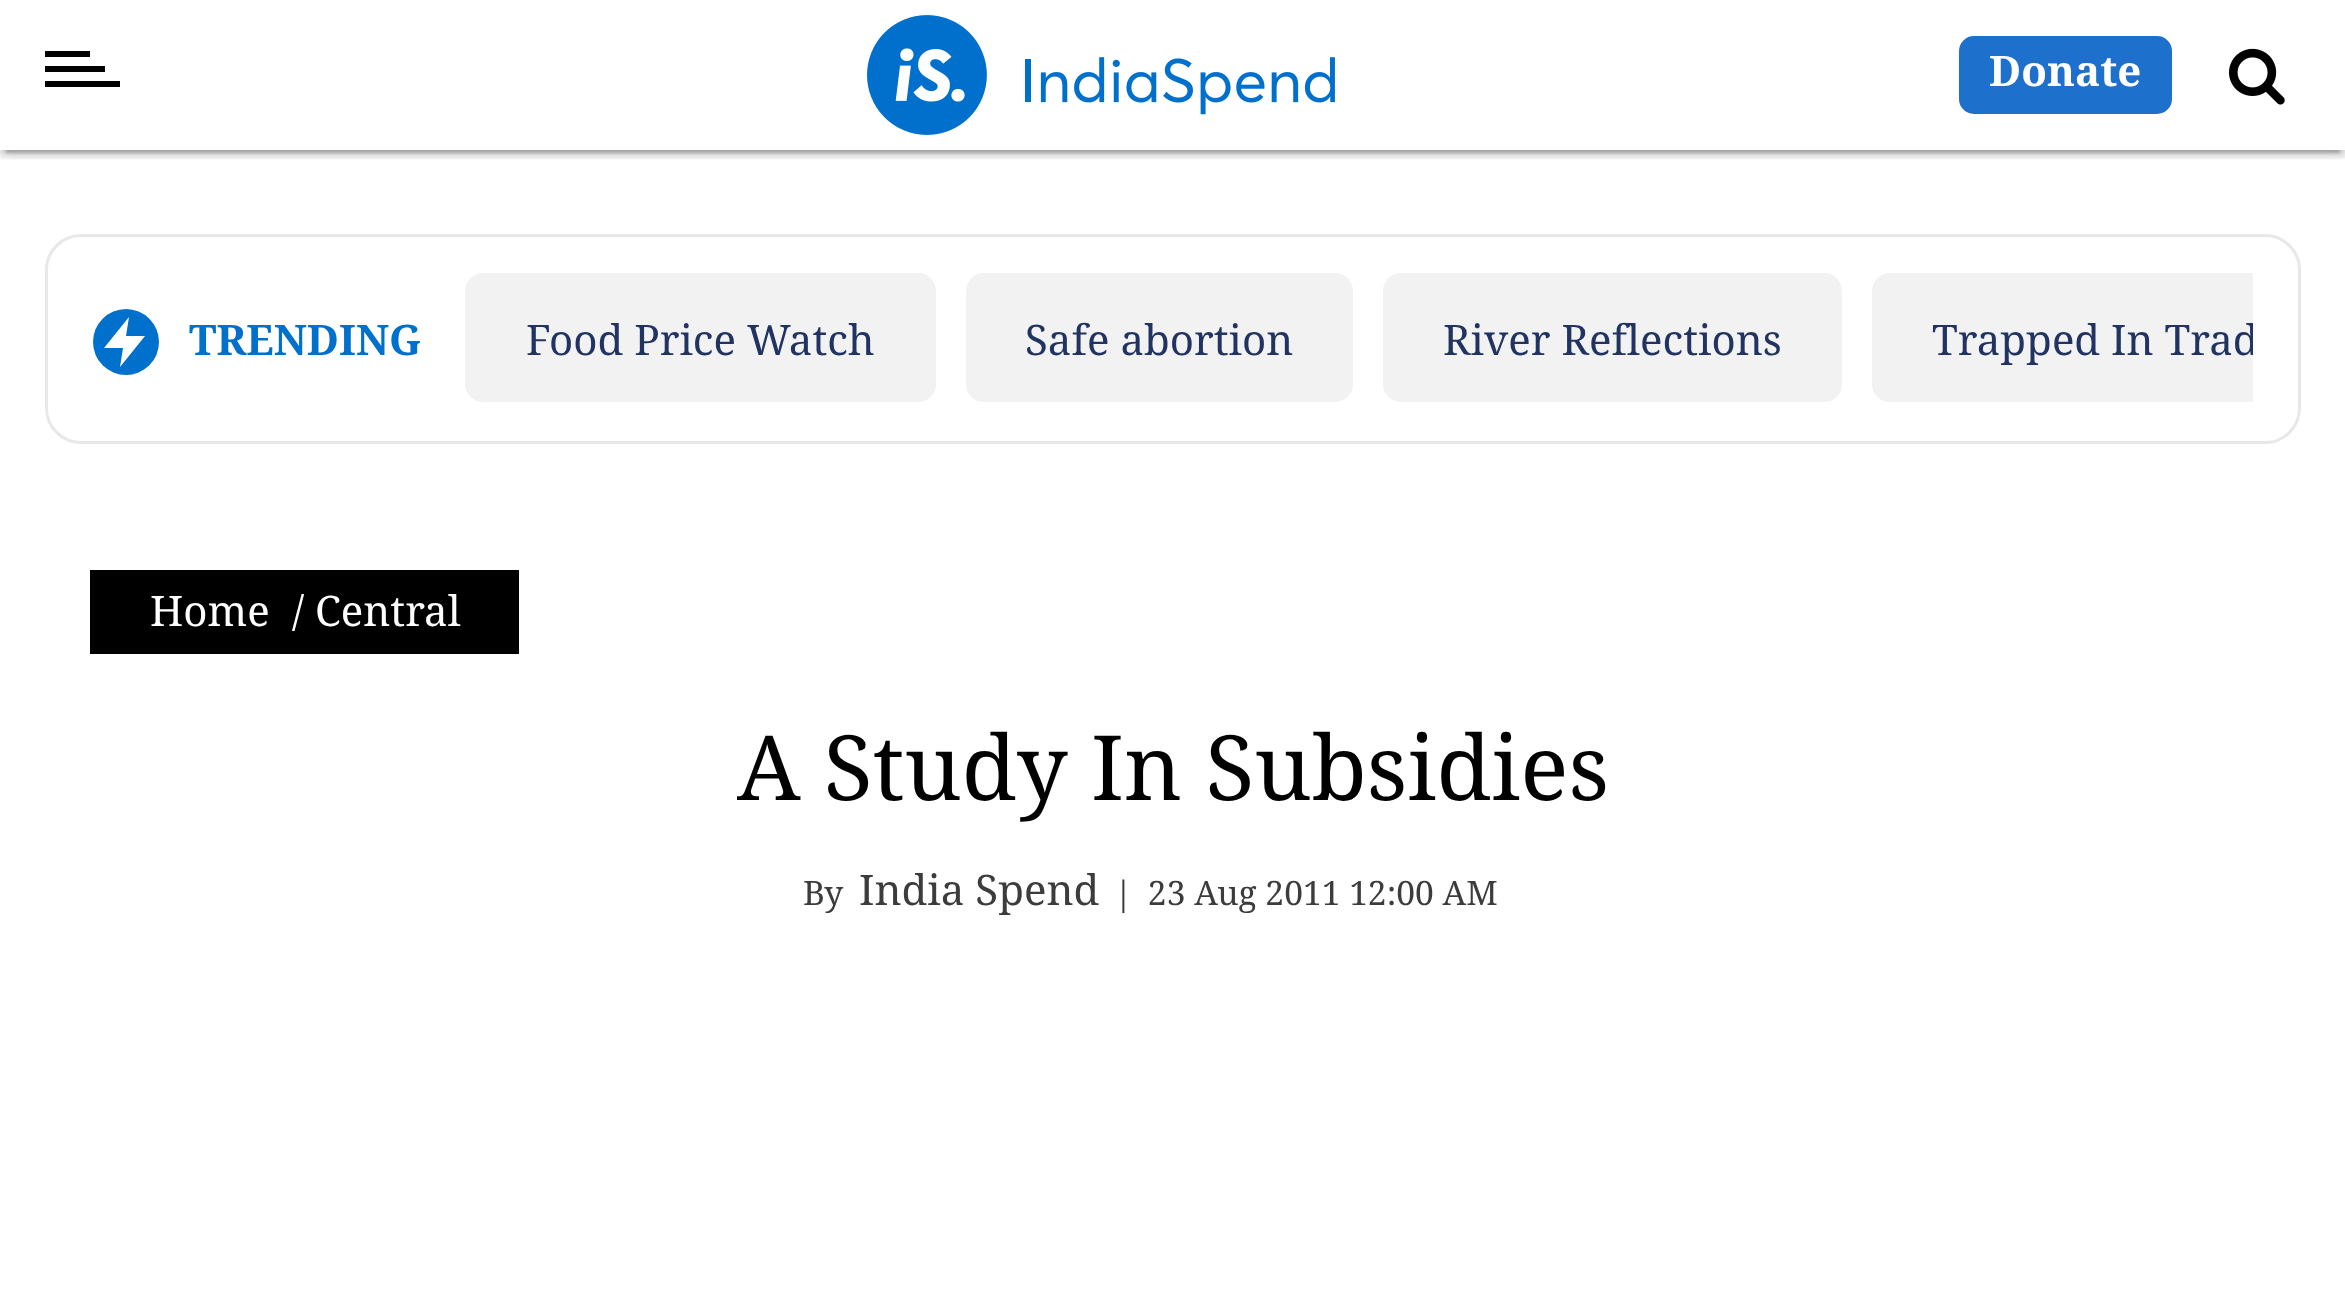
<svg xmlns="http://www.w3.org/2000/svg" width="2345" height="1310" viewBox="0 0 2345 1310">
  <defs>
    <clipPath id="clip1"><rect x="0" y="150" width="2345" height="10"/></clipPath>
    <filter id="blur1" x="-50%" y="-200%" width="200%" height="500%"><feGaussianBlur stdDeviation="7.5"/></filter>
    <clipPath id="clip2"><rect x="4" y="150" width="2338" height="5"/></clipPath>
    <filter id="blur2" x="-50%" y="-200%" width="200%" height="500%"><feGaussianBlur stdDeviation="1.5"/></filter>
    <clipPath id="clip3"><rect x="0" y="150" width="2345" height="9"/></clipPath>
    <filter id="blur3" x="-50%" y="-200%" width="200%" height="500%"><feGaussianBlur stdDeviation="3"/></filter>
    <clipPath id="clip4"><rect x="450" y="267" width="1803" height="144"/></clipPath>
  </defs>
  <rect width="100%" height="100%" fill="#ffffff"/>
  <g clip-path="url(#clip1)">
    <rect x="0" y="3" width="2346" height="150" fill="#000000" fill-opacity="0.12" filter="url(#blur1)"/>
  </g>
  <g clip-path="url(#clip2)">
    <rect x="6" y="15" width="2334" height="138" fill="#000000" fill-opacity="0.2" filter="url(#blur2)"/>
  </g>
  <g clip-path="url(#clip3)">
    <rect x="0" y="6" width="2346" height="150" fill="#000000" fill-opacity="0.14" filter="url(#blur3)"/>
  </g>
  <rect x="45" y="81" width="75" height="6" fill="#000000"/>
  <rect x="45" y="51" width="45" height="6" fill="#000000"/>
  <rect x="45" y="66" width="60" height="6" fill="#000000"/>
  <image x="867" y="15" width="468" height="120" href="img1.png"/>
  <rect x="1959" y="36" width="213" height="78" rx="15" fill="#1d70cc"/>
  <text x="1989" y="86" font-family="Noto Serif" font-size="42" font-weight="bold" fill="#ffffff">Donate</text>
  <image x="2229" y="48" width="56" height="57" href="img2.png"/>
  <rect x="46.5" y="235.5" width="2253" height="207" rx="34.5" fill="none" stroke="#e8e8e8" stroke-width="3"/>
  <circle cx="126" cy="342" r="33" fill="#0070cd"/>
  <path d="M129 317L104 348H123L120 367L145 336H126Z" fill="#ffffff"/>
  <text x="189" y="355" font-family="Noto Serif" font-size="42" font-weight="bold" fill="#0070cd">TRENDING</text>
  <rect x="465" y="273" width="471" height="129" rx="18" fill="#f2f2f2"/>
  <text x="526" y="355" font-family="Noto Serif" font-size="42" fill="#203361">Food Price Watch</text>
  <rect x="966" y="273" width="387" height="129" rx="18" fill="#f2f2f2"/>
  <text x="1025" y="355" font-family="Noto Serif" font-size="42" fill="#203361">Safe abortion</text>
  <rect x="1383" y="273" width="459" height="129" rx="18" fill="#f2f2f2"/>
  <text x="1443" y="355" font-family="Noto Serif" font-size="42" fill="#203361">River Reflections</text>
  <path d="M1890 273H2253V402H1890C1880 402 1872 394 1872 384V291C1872 281 1880 273 1890 273Z" fill="#f2f2f2"/>
  <g clip-path="url(#clip4)">
    <text x="1932" y="355" font-family="Noto Serif" font-size="42" fill="#203361">Trapped In Trad</text>
  </g>
  <rect x="90" y="570" width="429" height="84" fill="#000000"/>
  <text x="150" y="626" font-family="Noto Serif" font-size="42" fill="#ffffff">Home</text>
  <text x="292" y="626" font-family="Noto Serif" font-size="42" fill="#ffffff">/ Central</text>
  <text x="737" y="800" font-family="Noto Serif" font-size="90" fill="#000000">A Study In Subsidies</text>
  <text x="803" y="905" font-family="Noto Serif" font-size="33.6" fill="#3c3c3c">By</text>
  <text x="859" y="905" font-family="Noto Serif" font-size="42" fill="#3c3c3c">India Spend</text>
  <text x="1114" y="905" font-family="Noto Serif" font-size="33.6" fill="#3c3c3c">|</text>
  <text x="1148" y="905" font-family="Noto Serif" font-size="33.6" fill="#3c3c3c">23 Aug 2011 12:00 AM</text>
</svg>
